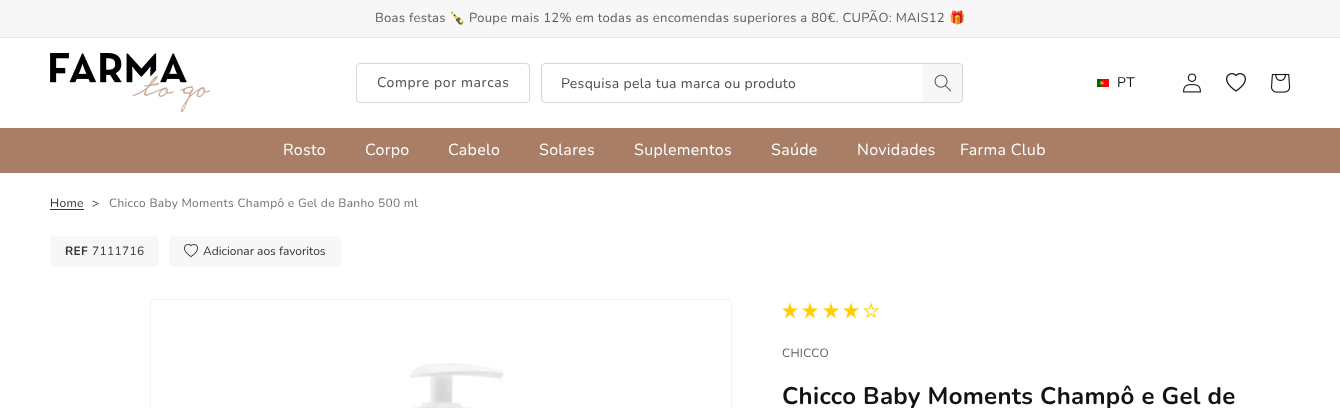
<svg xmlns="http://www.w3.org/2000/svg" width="1340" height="408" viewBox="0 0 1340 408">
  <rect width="100%" height="100%" fill="#ffffff"/>
  <rect x="0" y="0" width="1340" height="37" fill="#f7f7f7"/>
  <rect x="0" y="37" width="1340" height="1" fill="#e5e5e5"/>
  <text x="375" y="22" font-family="Nunito" font-size="13" letter-spacing="0.3" fill="#5d5d5d">Boas festas</text>
  <text x="449" y="22" font-family="Noto Color Emoji" font-size="13" letter-spacing="0.3" fill="#5d5d5d">🍾</text>
  <text x="469" y="22" font-family="Nunito" font-size="13" letter-spacing="0.3" fill="#5d5d5d">Poupe mais 12% em todas as encomendas superiores a 80€. CUPÃO: MAIS12</text>
  <text x="949" y="22" font-family="Noto Color Emoji" font-size="13" letter-spacing="0.3" fill="#5d5d5d">🎁</text>
  <image x="50" y="53" width="160" height="59" href="img1.png"/>
  <rect x="356.5" y="63.5" width="173" height="39" rx="3.5" fill="none" stroke="#d6d6d6"/>
  <text x="377" y="87" font-family="Nunito" font-size="14" letter-spacing="0.6" fill="#4d4d4d">Compre por marcas</text>
  <path d="M923 63H959C961 63 963 65 963 67V99C963 101 961 103 959 103H923Z" fill="#f7f7f7"/>
  <image x="934" y="74" width="17" height="18" href="img2.png"/>
  <rect x="541.5" y="63.5" width="421" height="39" rx="3.5" fill="none" stroke="#d6d6d6"/>
  <text x="561" y="88" font-family="Nunito" font-size="14" letter-spacing="0.3" fill="#4d4d4d">Pesquisa pela tua marca ou produto</text>
  <image x="1097" y="79" width="12" height="8" href="img3.png"/>
  <text x="1117" y="87" font-family="Nunito" font-size="14" letter-spacing="0.6" fill="#121212">PT</text>
  <image x="1183" y="73" width="18" height="20" href="img4.png"/>
  <image x="1226" y="73" width="20" height="19" href="img5.png"/>
  <image x="1271" y="74" width="20" height="19" href="img6.png"/>
  <rect x="0" y="128" width="1340" height="45" fill="#a87e66"/>
  <text x="283" y="155" font-family="Nunito" font-size="16" letter-spacing="0.3" fill="#ffffff">Rosto</text>
  <text x="365" y="155" font-family="Nunito" font-size="16" letter-spacing="0.3" fill="#ffffff">Corpo</text>
  <text x="448" y="155" font-family="Nunito" font-size="16" letter-spacing="0.3" fill="#ffffff">Cabelo</text>
  <text x="539" y="155" font-family="Nunito" font-size="16" letter-spacing="0.3" fill="#ffffff">Solares</text>
  <text x="634" y="155" font-family="Nunito" font-size="16" letter-spacing="0.3" fill="#ffffff">Suplementos</text>
  <text x="771" y="155" font-family="Nunito" font-size="16" letter-spacing="0.3" fill="#ffffff">Saúde</text>
  <text x="857" y="155" font-family="Nunito" font-size="16" letter-spacing="0.3" fill="#ffffff">Novidades</text>
  <text x="960" y="155" font-family="Nunito" font-size="16" letter-spacing="0.3" fill="#ffffff">Farma Club</text>
  <text x="50" y="207" font-family="Nunito" font-size="12" letter-spacing="0.3" fill="#323232">Home</text>
  <rect x="50" y="209" width="34" height="1" fill="#323232"/>
  <text x="92" y="207" font-family="Nunito" font-size="12" letter-spacing="0.3" fill="#323232">&gt;</text>
  <text x="109" y="207" font-family="Nunito" font-size="12" letter-spacing="0.3" fill="#707070">Chicco Baby Moments Champô e Gel de Banho 500 ml</text>
  <rect x="50" y="236" width="109" height="31" rx="4" fill="#f7f7f7"/>
  <text x="65" y="255" font-family="Nunito" font-size="12" font-weight="bold" letter-spacing="0.3" fill="#323232">REF</text>
  <text x="92" y="255" font-family="Nunito" font-size="12" letter-spacing="0.3" fill="#323232">7111716</text>
  <rect x="169" y="236" width="172" height="31" rx="4" fill="#f7f7f7"/>
  <image x="184" y="244" width="14" height="13" href="img7.png"/>
  <text x="203" y="255" font-family="Nunito" font-size="12" fill="#323232">Adicionar aos favoritos</text>
  <rect x="150.5" y="299.5" width="581" height="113" rx="3.5" fill="none" stroke="#f3f3f3"/>
  <image x="410" y="363" width="94" height="45" href="img8.png"/>
  <image x="782" y="302" width="16" height="17" href="img9.png"/>
  <image x="802" y="302" width="16" height="17" href="img9.png"/>
  <image x="823" y="302" width="16" height="17" href="img9.png"/>
  <image x="843" y="302" width="16" height="17" href="img9.png"/>
  <image x="863" y="302" width="16" height="17" href="img10.png"/>
  <text x="782" y="357" font-family="Nunito" font-size="12" letter-spacing="0.3" fill="#5d5d5d">CHICCO</text>
  <text x="782" y="404" font-family="Nunito" font-size="24" font-weight="bold" letter-spacing="0.3" fill="#121212">Chicco Baby Moments Champô e Gel de</text>
</svg>
